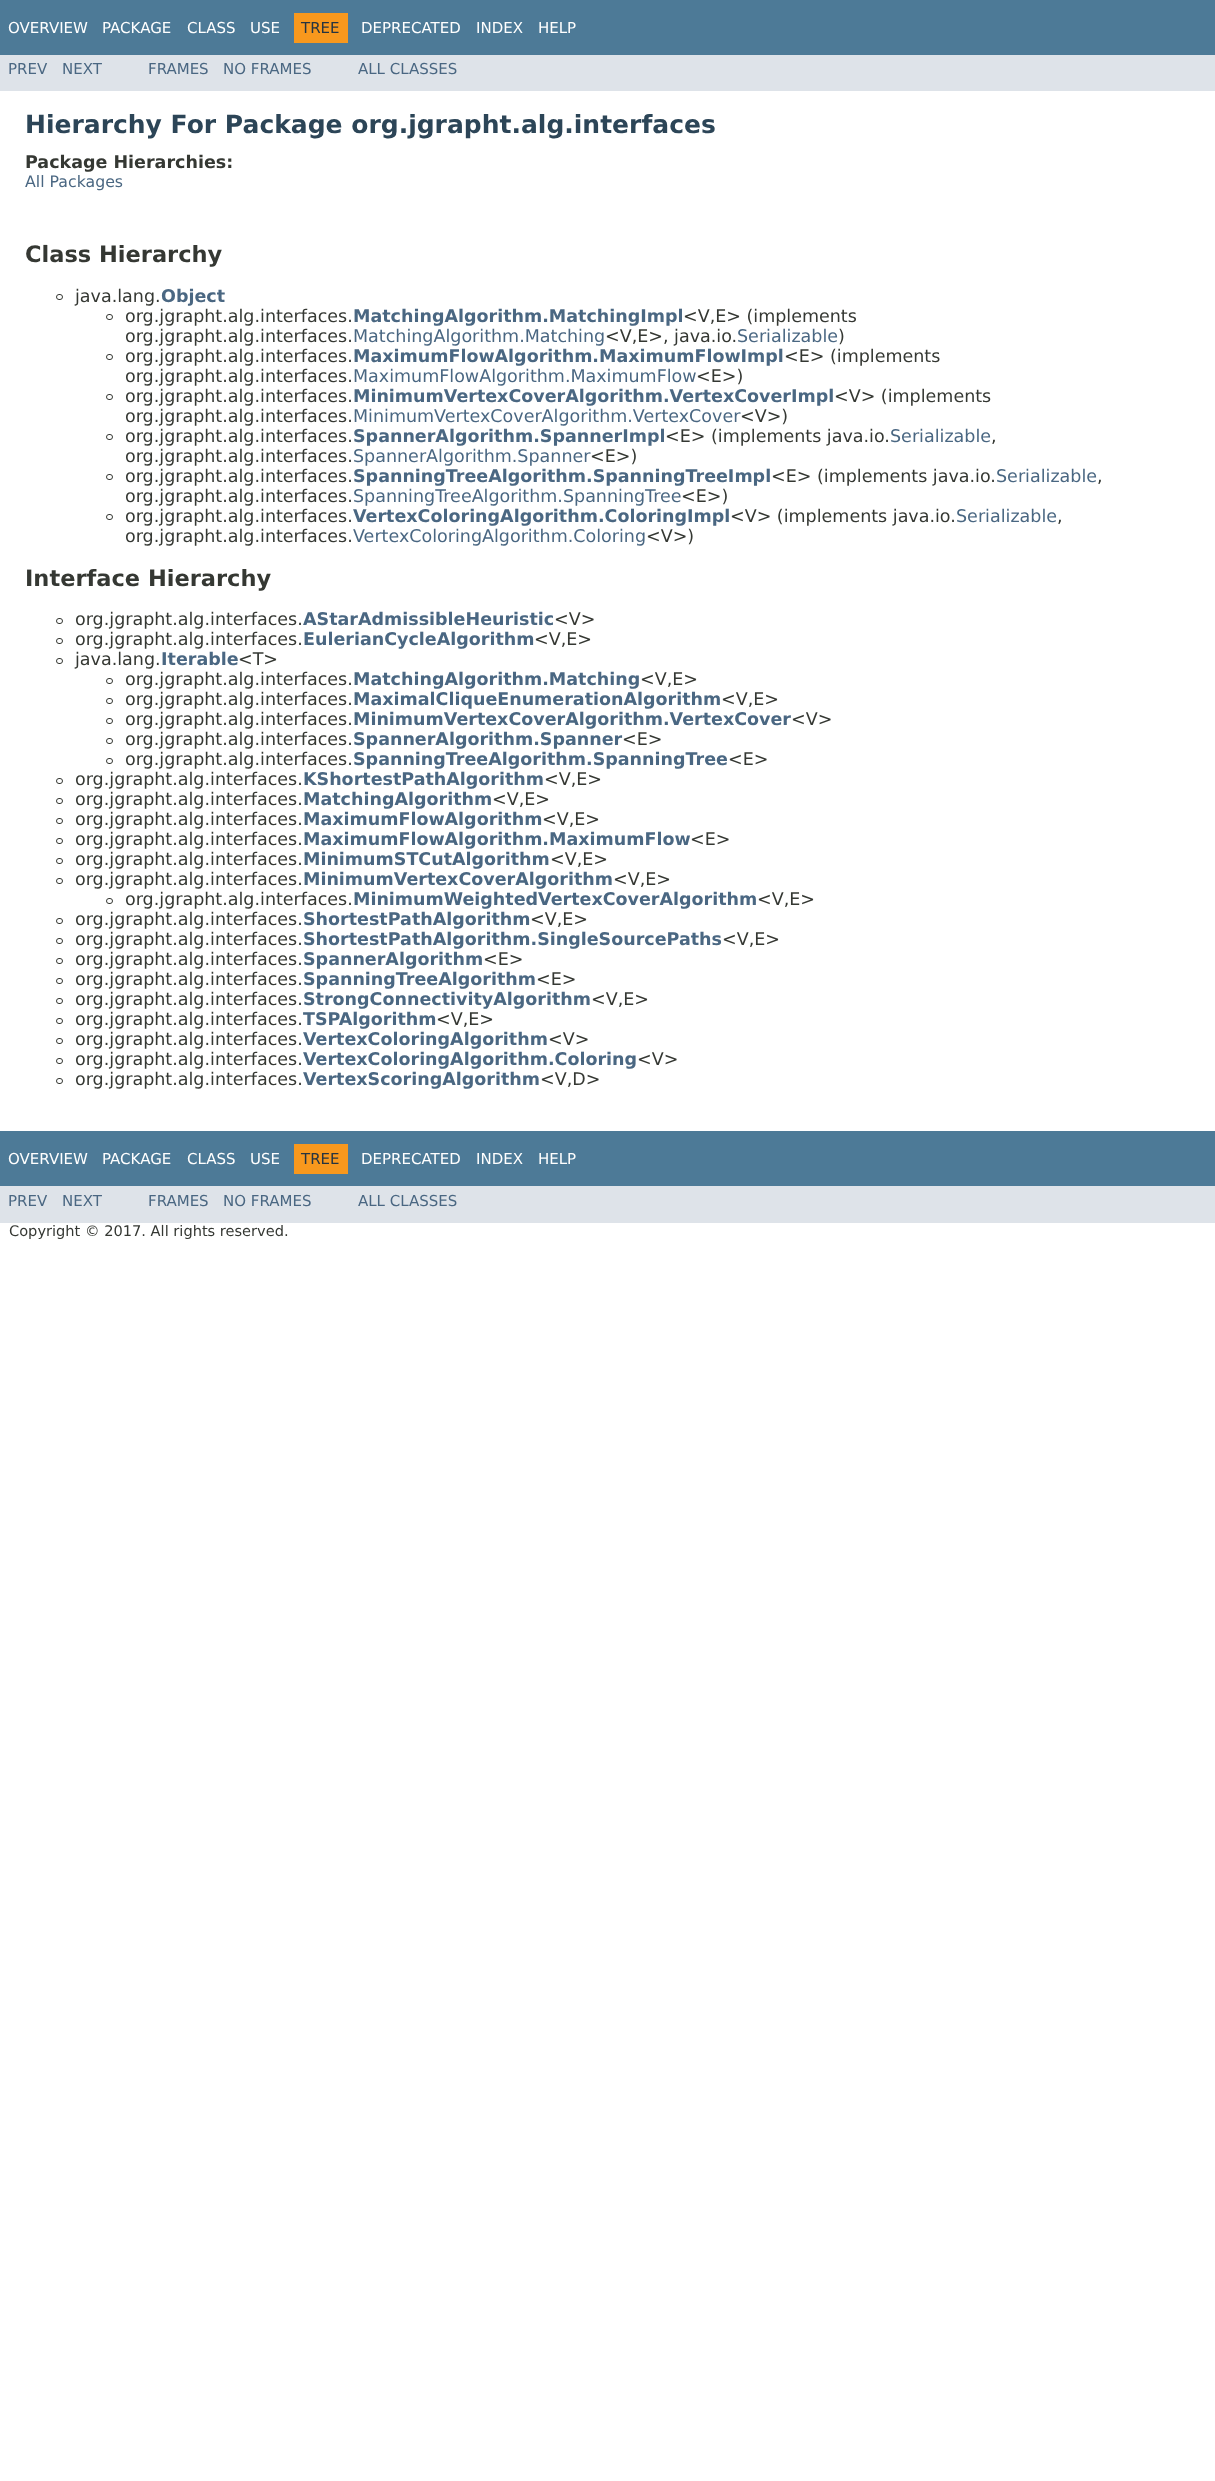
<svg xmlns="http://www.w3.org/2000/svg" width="1215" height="2481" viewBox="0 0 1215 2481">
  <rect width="100%" height="100%" fill="#ffffff"/>
  <rect x="0" y="0" width="1215" height="55" fill="#4d7a97"/>
  <text x="8" y="33" font-family="DejaVu Sans" font-size="15" fill="#ffffff">OVERVIEW</text>
  <text x="102" y="33" font-family="DejaVu Sans" font-size="15" fill="#ffffff">PACKAGE</text>
  <text x="187" y="33" font-family="DejaVu Sans" font-size="15" fill="#ffffff">CLASS</text>
  <text x="250" y="33" font-family="DejaVu Sans" font-size="15" fill="#ffffff">USE</text>
  <rect x="294" y="13" width="54" height="30" fill="#f8981d"/>
  <text x="301" y="33" font-family="DejaVu Sans" font-size="15" fill="#253441">TREE</text>
  <text x="361" y="33" font-family="DejaVu Sans" font-size="15" fill="#ffffff">DEPRECATED</text>
  <text x="476" y="33" font-family="DejaVu Sans" font-size="15" fill="#ffffff">INDEX</text>
  <text x="538" y="33" font-family="DejaVu Sans" font-size="15" fill="#ffffff">HELP</text>
  <rect x="0" y="55" width="1215" height="36" fill="#dee3e9"/>
  <text x="8" y="74" font-family="DejaVu Sans" font-size="15" fill="#4a6782">PREV</text>
  <text x="62" y="74" font-family="DejaVu Sans" font-size="15" fill="#4a6782">NEXT</text>
  <text x="148" y="74" font-family="DejaVu Sans" font-size="15" fill="#4a6782">FRAMES</text>
  <text x="223" y="74" font-family="DejaVu Sans" font-size="15" fill="#4a6782">NO FRAMES</text>
  <text x="358" y="74" font-family="DejaVu Sans" font-size="15" fill="#4a6782">ALL CLASSES</text>
  <text x="25" y="133" font-family="DejaVu Sans" font-size="25" font-weight="bold" fill="#2c4557">Hierarchy For Package org.jgrapht.alg.interfaces</text>
  <text x="25" y="168" font-family="DejaVu Sans" font-size="17.5" font-weight="bold" fill="#353833">Package Hierarchies:</text>
  <text x="25" y="187" font-family="DejaVu Sans" font-size="15.75" fill="#4a6782">All Packages</text>
  <text x="25" y="262" font-family="DejaVu Sans" font-size="22.5" font-weight="bold" fill="#353833">Class Hierarchy</text>
  <rect x="56.5" y="294.5" width="6" height="5" rx="2.5" fill="none" stroke="#353833"/>
  <text x="75" y="302" font-family="DejaVu Sans" font-size="17.5" fill="#353833">java.lang.</text>
  <text x="161" y="302" font-family="DejaVu Sans" font-size="17.5" font-weight="bold" fill="#4a6782">Object</text>
  <rect x="106.5" y="314.5" width="6" height="5" rx="2.5" fill="none" stroke="#353833"/>
  <text x="125" y="322" font-family="DejaVu Sans" font-size="17.5" fill="#353833">org.jgrapht.alg.interfaces.</text>
  <text x="353" y="322" font-family="DejaVu Sans" font-size="17.5" font-weight="bold" fill="#4a6782">MatchingAlgorithm.MatchingImpl</text>
  <text x="683" y="322" font-family="DejaVu Sans" font-size="17.5" fill="#353833">&lt;V,E&gt; (implements</text>
  <text x="125" y="342" font-family="DejaVu Sans" font-size="17.5" fill="#353833">org.jgrapht.alg.interfaces.</text>
  <text x="353" y="342" font-family="DejaVu Sans" font-size="17.5" fill="#4a6782">MatchingAlgorithm.Matching</text>
  <text x="605" y="342" font-family="DejaVu Sans" font-size="17.5" fill="#353833">&lt;V,E&gt;, java.io.</text>
  <text x="737" y="342" font-family="DejaVu Sans" font-size="17.5" fill="#4a6782">Serializable</text>
  <text x="838" y="342" font-family="DejaVu Sans" font-size="17.5" fill="#353833">)</text>
  <rect x="106.5" y="354.5" width="6" height="5" rx="2.5" fill="none" stroke="#353833"/>
  <text x="125" y="362" font-family="DejaVu Sans" font-size="17.5" fill="#353833">org.jgrapht.alg.interfaces.</text>
  <text x="353" y="362" font-family="DejaVu Sans" font-size="17.5" font-weight="bold" fill="#4a6782">MaximumFlowAlgorithm.MaximumFlowImpl</text>
  <text x="784" y="362" font-family="DejaVu Sans" font-size="17.5" fill="#353833">&lt;E&gt; (implements</text>
  <text x="125" y="382" font-family="DejaVu Sans" font-size="17.5" fill="#353833">org.jgrapht.alg.interfaces.</text>
  <text x="353" y="382" font-family="DejaVu Sans" font-size="17.5" fill="#4a6782">MaximumFlowAlgorithm.MaximumFlow</text>
  <text x="696" y="382" font-family="DejaVu Sans" font-size="17.5" fill="#353833">&lt;E&gt;)</text>
  <rect x="106.5" y="394.5" width="6" height="5" rx="2.5" fill="none" stroke="#353833"/>
  <text x="125" y="402" font-family="DejaVu Sans" font-size="17.5" fill="#353833">org.jgrapht.alg.interfaces.</text>
  <text x="353" y="402" font-family="DejaVu Sans" font-size="17.5" font-weight="bold" fill="#4a6782">MinimumVertexCoverAlgorithm.VertexCoverImpl</text>
  <text x="834" y="402" font-family="DejaVu Sans" font-size="17.5" fill="#353833">&lt;V&gt; (implements</text>
  <text x="125" y="422" font-family="DejaVu Sans" font-size="17.5" fill="#353833">org.jgrapht.alg.interfaces.</text>
  <text x="353" y="422" font-family="DejaVu Sans" font-size="17.5" fill="#4a6782">MinimumVertexCoverAlgorithm.VertexCover</text>
  <text x="740" y="422" font-family="DejaVu Sans" font-size="17.5" fill="#353833">&lt;V&gt;)</text>
  <rect x="106.5" y="434.5" width="6" height="5" rx="2.5" fill="none" stroke="#353833"/>
  <text x="125" y="442" font-family="DejaVu Sans" font-size="17.5" fill="#353833">org.jgrapht.alg.interfaces.</text>
  <text x="353" y="442" font-family="DejaVu Sans" font-size="17.5" font-weight="bold" fill="#4a6782">SpannerAlgorithm.SpannerImpl</text>
  <text x="665" y="442" font-family="DejaVu Sans" font-size="17.5" fill="#353833">&lt;E&gt; (implements java.io.</text>
  <text x="890" y="442" font-family="DejaVu Sans" font-size="17.5" fill="#4a6782">Serializable</text>
  <text x="991" y="442" font-family="DejaVu Sans" font-size="17.5" fill="#353833">,</text>
  <text x="125" y="462" font-family="DejaVu Sans" font-size="17.5" fill="#353833">org.jgrapht.alg.interfaces.</text>
  <text x="353" y="462" font-family="DejaVu Sans" font-size="17.5" fill="#4a6782">SpannerAlgorithm.Spanner</text>
  <text x="590" y="462" font-family="DejaVu Sans" font-size="17.5" fill="#353833">&lt;E&gt;)</text>
  <rect x="106.5" y="474.5" width="6" height="5" rx="2.5" fill="none" stroke="#353833"/>
  <text x="125" y="482" font-family="DejaVu Sans" font-size="17.5" fill="#353833">org.jgrapht.alg.interfaces.</text>
  <text x="353" y="482" font-family="DejaVu Sans" font-size="17.5" font-weight="bold" fill="#4a6782">SpanningTreeAlgorithm.SpanningTreeImpl</text>
  <text x="771" y="482" font-family="DejaVu Sans" font-size="17.5" fill="#353833">&lt;E&gt; (implements java.io.</text>
  <text x="996" y="482" font-family="DejaVu Sans" font-size="17.5" fill="#4a6782">Serializable</text>
  <text x="1097" y="482" font-family="DejaVu Sans" font-size="17.5" fill="#353833">,</text>
  <text x="125" y="502" font-family="DejaVu Sans" font-size="17.5" fill="#353833">org.jgrapht.alg.interfaces.</text>
  <text x="353" y="502" font-family="DejaVu Sans" font-size="17.5" fill="#4a6782">SpanningTreeAlgorithm.SpanningTree</text>
  <text x="681" y="502" font-family="DejaVu Sans" font-size="17.5" fill="#353833">&lt;E&gt;)</text>
  <rect x="106.5" y="514.5" width="6" height="5" rx="2.5" fill="none" stroke="#353833"/>
  <text x="125" y="522" font-family="DejaVu Sans" font-size="17.5" fill="#353833">org.jgrapht.alg.interfaces.</text>
  <text x="353" y="522" font-family="DejaVu Sans" font-size="17.5" font-weight="bold" fill="#4a6782">VertexColoringAlgorithm.ColoringImpl</text>
  <text x="730" y="522" font-family="DejaVu Sans" font-size="17.5" fill="#353833">&lt;V&gt; (implements java.io.</text>
  <text x="956" y="522" font-family="DejaVu Sans" font-size="17.5" fill="#4a6782">Serializable</text>
  <text x="1057" y="522" font-family="DejaVu Sans" font-size="17.5" fill="#353833">,</text>
  <text x="125" y="542" font-family="DejaVu Sans" font-size="17.5" fill="#353833">org.jgrapht.alg.interfaces.</text>
  <text x="353" y="542" font-family="DejaVu Sans" font-size="17.5" fill="#4a6782">VertexColoringAlgorithm.Coloring</text>
  <text x="646" y="542" font-family="DejaVu Sans" font-size="17.5" fill="#353833">&lt;V&gt;)</text>
  <text x="25" y="586" font-family="DejaVu Sans" font-size="22.5" font-weight="bold" fill="#353833">Interface Hierarchy</text>
  <rect x="56.5" y="618.5" width="6" height="5" rx="2.5" fill="none" stroke="#353833"/>
  <text x="75" y="625" font-family="DejaVu Sans" font-size="17.5" fill="#353833">org.jgrapht.alg.interfaces.</text>
  <text x="303" y="625" font-family="DejaVu Sans" font-size="17.5" font-weight="bold" fill="#4a6782">AStarAdmissibleHeuristic</text>
  <text x="554" y="625" font-family="DejaVu Sans" font-size="17.5" fill="#353833">&lt;V&gt;</text>
  <rect x="56.5" y="638.5" width="6" height="5" rx="2.5" fill="none" stroke="#353833"/>
  <text x="75" y="645" font-family="DejaVu Sans" font-size="17.5" fill="#353833">org.jgrapht.alg.interfaces.</text>
  <text x="303" y="645" font-family="DejaVu Sans" font-size="17.5" font-weight="bold" fill="#4a6782">EulerianCycleAlgorithm</text>
  <text x="534" y="645" font-family="DejaVu Sans" font-size="17.5" fill="#353833">&lt;V,E&gt;</text>
  <rect x="56.5" y="658.5" width="6" height="5" rx="2.5" fill="none" stroke="#353833"/>
  <text x="75" y="665" font-family="DejaVu Sans" font-size="17.5" fill="#353833">java.lang.</text>
  <text x="161" y="665" font-family="DejaVu Sans" font-size="17.5" font-weight="bold" fill="#4a6782">Iterable</text>
  <text x="238" y="665" font-family="DejaVu Sans" font-size="17.5" fill="#353833">&lt;T&gt;</text>
  <rect x="106.5" y="678.5" width="6" height="5" rx="2.5" fill="none" stroke="#353833"/>
  <text x="125" y="685" font-family="DejaVu Sans" font-size="17.5" fill="#353833">org.jgrapht.alg.interfaces.</text>
  <text x="353" y="685" font-family="DejaVu Sans" font-size="17.5" font-weight="bold" fill="#4a6782">MatchingAlgorithm.Matching</text>
  <text x="640" y="685" font-family="DejaVu Sans" font-size="17.5" fill="#353833">&lt;V,E&gt;</text>
  <rect x="106.5" y="698.5" width="6" height="5" rx="2.5" fill="none" stroke="#353833"/>
  <text x="125" y="705" font-family="DejaVu Sans" font-size="17.5" fill="#353833">org.jgrapht.alg.interfaces.</text>
  <text x="353" y="705" font-family="DejaVu Sans" font-size="17.5" font-weight="bold" fill="#4a6782">MaximalCliqueEnumerationAlgorithm</text>
  <text x="721" y="705" font-family="DejaVu Sans" font-size="17.5" fill="#353833">&lt;V,E&gt;</text>
  <rect x="106.5" y="718.5" width="6" height="5" rx="2.5" fill="none" stroke="#353833"/>
  <text x="125" y="725" font-family="DejaVu Sans" font-size="17.5" fill="#353833">org.jgrapht.alg.interfaces.</text>
  <text x="353" y="725" font-family="DejaVu Sans" font-size="17.5" font-weight="bold" fill="#4a6782">MinimumVertexCoverAlgorithm.VertexCover</text>
  <text x="791" y="725" font-family="DejaVu Sans" font-size="17.5" fill="#353833">&lt;V&gt;</text>
  <rect x="106.5" y="738.5" width="6" height="5" rx="2.5" fill="none" stroke="#353833"/>
  <text x="125" y="745" font-family="DejaVu Sans" font-size="17.5" fill="#353833">org.jgrapht.alg.interfaces.</text>
  <text x="353" y="745" font-family="DejaVu Sans" font-size="17.5" font-weight="bold" fill="#4a6782">SpannerAlgorithm.Spanner</text>
  <text x="622" y="745" font-family="DejaVu Sans" font-size="17.5" fill="#353833">&lt;E&gt;</text>
  <rect x="106.5" y="758.5" width="6" height="5" rx="2.5" fill="none" stroke="#353833"/>
  <text x="125" y="765" font-family="DejaVu Sans" font-size="17.5" fill="#353833">org.jgrapht.alg.interfaces.</text>
  <text x="353" y="765" font-family="DejaVu Sans" font-size="17.5" font-weight="bold" fill="#4a6782">SpanningTreeAlgorithm.SpanningTree</text>
  <text x="728" y="765" font-family="DejaVu Sans" font-size="17.5" fill="#353833">&lt;E&gt;</text>
  <rect x="56.5" y="778.5" width="6" height="5" rx="2.5" fill="none" stroke="#353833"/>
  <text x="75" y="785" font-family="DejaVu Sans" font-size="17.5" fill="#353833">org.jgrapht.alg.interfaces.</text>
  <text x="303" y="785" font-family="DejaVu Sans" font-size="17.5" font-weight="bold" fill="#4a6782">KShortestPathAlgorithm</text>
  <text x="544" y="785" font-family="DejaVu Sans" font-size="17.5" fill="#353833">&lt;V,E&gt;</text>
  <rect x="56.5" y="798.5" width="6" height="5" rx="2.5" fill="none" stroke="#353833"/>
  <text x="75" y="805" font-family="DejaVu Sans" font-size="17.5" fill="#353833">org.jgrapht.alg.interfaces.</text>
  <text x="303" y="805" font-family="DejaVu Sans" font-size="17.5" font-weight="bold" fill="#4a6782">MatchingAlgorithm</text>
  <text x="492" y="805" font-family="DejaVu Sans" font-size="17.5" fill="#353833">&lt;V,E&gt;</text>
  <rect x="56.5" y="818.5" width="6" height="5" rx="2.5" fill="none" stroke="#353833"/>
  <text x="75" y="825" font-family="DejaVu Sans" font-size="17.5" fill="#353833">org.jgrapht.alg.interfaces.</text>
  <text x="303" y="825" font-family="DejaVu Sans" font-size="17.5" font-weight="bold" fill="#4a6782">MaximumFlowAlgorithm</text>
  <text x="542" y="825" font-family="DejaVu Sans" font-size="17.5" fill="#353833">&lt;V,E&gt;</text>
  <rect x="56.5" y="838.5" width="6" height="5" rx="2.5" fill="none" stroke="#353833"/>
  <text x="75" y="845" font-family="DejaVu Sans" font-size="17.5" fill="#353833">org.jgrapht.alg.interfaces.</text>
  <text x="303" y="845" font-family="DejaVu Sans" font-size="17.5" font-weight="bold" fill="#4a6782">MaximumFlowAlgorithm.MaximumFlow</text>
  <text x="690" y="845" font-family="DejaVu Sans" font-size="17.5" fill="#353833">&lt;E&gt;</text>
  <rect x="56.5" y="858.5" width="6" height="5" rx="2.5" fill="none" stroke="#353833"/>
  <text x="75" y="865" font-family="DejaVu Sans" font-size="17.5" fill="#353833">org.jgrapht.alg.interfaces.</text>
  <text x="303" y="865" font-family="DejaVu Sans" font-size="17.5" font-weight="bold" fill="#4a6782">MinimumSTCutAlgorithm</text>
  <text x="550" y="865" font-family="DejaVu Sans" font-size="17.5" fill="#353833">&lt;V,E&gt;</text>
  <rect x="56.5" y="878.5" width="6" height="5" rx="2.5" fill="none" stroke="#353833"/>
  <text x="75" y="885" font-family="DejaVu Sans" font-size="17.5" fill="#353833">org.jgrapht.alg.interfaces.</text>
  <text x="303" y="885" font-family="DejaVu Sans" font-size="17.5" font-weight="bold" fill="#4a6782">MinimumVertexCoverAlgorithm</text>
  <text x="613" y="885" font-family="DejaVu Sans" font-size="17.5" fill="#353833">&lt;V,E&gt;</text>
  <rect x="106.5" y="898.5" width="6" height="5" rx="2.5" fill="none" stroke="#353833"/>
  <text x="125" y="905" font-family="DejaVu Sans" font-size="17.5" fill="#353833">org.jgrapht.alg.interfaces.</text>
  <text x="353" y="905" font-family="DejaVu Sans" font-size="17.5" font-weight="bold" fill="#4a6782">MinimumWeightedVertexCoverAlgorithm</text>
  <text x="757" y="905" font-family="DejaVu Sans" font-size="17.5" fill="#353833">&lt;V,E&gt;</text>
  <rect x="56.5" y="918.5" width="6" height="5" rx="2.5" fill="none" stroke="#353833"/>
  <text x="75" y="925" font-family="DejaVu Sans" font-size="17.5" fill="#353833">org.jgrapht.alg.interfaces.</text>
  <text x="303" y="925" font-family="DejaVu Sans" font-size="17.5" font-weight="bold" fill="#4a6782">ShortestPathAlgorithm</text>
  <text x="530" y="925" font-family="DejaVu Sans" font-size="17.5" fill="#353833">&lt;V,E&gt;</text>
  <rect x="56.5" y="938.5" width="6" height="5" rx="2.5" fill="none" stroke="#353833"/>
  <text x="75" y="945" font-family="DejaVu Sans" font-size="17.5" fill="#353833">org.jgrapht.alg.interfaces.</text>
  <text x="303" y="945" font-family="DejaVu Sans" font-size="17.5" font-weight="bold" fill="#4a6782">ShortestPathAlgorithm.SingleSourcePaths</text>
  <text x="722" y="945" font-family="DejaVu Sans" font-size="17.5" fill="#353833">&lt;V,E&gt;</text>
  <rect x="56.5" y="958.5" width="6" height="5" rx="2.5" fill="none" stroke="#353833"/>
  <text x="75" y="965" font-family="DejaVu Sans" font-size="17.5" fill="#353833">org.jgrapht.alg.interfaces.</text>
  <text x="303" y="965" font-family="DejaVu Sans" font-size="17.5" font-weight="bold" fill="#4a6782">SpannerAlgorithm</text>
  <text x="483" y="965" font-family="DejaVu Sans" font-size="17.5" fill="#353833">&lt;E&gt;</text>
  <rect x="56.5" y="978.5" width="6" height="5" rx="2.5" fill="none" stroke="#353833"/>
  <text x="75" y="985" font-family="DejaVu Sans" font-size="17.5" fill="#353833">org.jgrapht.alg.interfaces.</text>
  <text x="303" y="985" font-family="DejaVu Sans" font-size="17.5" font-weight="bold" fill="#4a6782">SpanningTreeAlgorithm</text>
  <text x="536" y="985" font-family="DejaVu Sans" font-size="17.5" fill="#353833">&lt;E&gt;</text>
  <rect x="56.5" y="998.5" width="6" height="5" rx="2.5" fill="none" stroke="#353833"/>
  <text x="75" y="1005" font-family="DejaVu Sans" font-size="17.5" fill="#353833">org.jgrapht.alg.interfaces.</text>
  <text x="303" y="1005" font-family="DejaVu Sans" font-size="17.5" font-weight="bold" fill="#4a6782">StrongConnectivityAlgorithm</text>
  <text x="591" y="1005" font-family="DejaVu Sans" font-size="17.5" fill="#353833">&lt;V,E&gt;</text>
  <rect x="56.5" y="1018.5" width="6" height="5" rx="2.5" fill="none" stroke="#353833"/>
  <text x="75" y="1025" font-family="DejaVu Sans" font-size="17.5" fill="#353833">org.jgrapht.alg.interfaces.</text>
  <text x="303" y="1025" font-family="DejaVu Sans" font-size="17.5" font-weight="bold" fill="#4a6782">TSPAlgorithm</text>
  <text x="436" y="1025" font-family="DejaVu Sans" font-size="17.5" fill="#353833">&lt;V,E&gt;</text>
  <rect x="56.5" y="1038.5" width="6" height="5" rx="2.5" fill="none" stroke="#353833"/>
  <text x="75" y="1045" font-family="DejaVu Sans" font-size="17.5" fill="#353833">org.jgrapht.alg.interfaces.</text>
  <text x="303" y="1045" font-family="DejaVu Sans" font-size="17.5" font-weight="bold" fill="#4a6782">VertexColoringAlgorithm</text>
  <text x="548" y="1045" font-family="DejaVu Sans" font-size="17.5" fill="#353833">&lt;V&gt;</text>
  <rect x="56.5" y="1058.5" width="6" height="5" rx="2.5" fill="none" stroke="#353833"/>
  <text x="75" y="1065" font-family="DejaVu Sans" font-size="17.5" fill="#353833">org.jgrapht.alg.interfaces.</text>
  <text x="303" y="1065" font-family="DejaVu Sans" font-size="17.5" font-weight="bold" fill="#4a6782">VertexColoringAlgorithm.Coloring</text>
  <text x="637" y="1065" font-family="DejaVu Sans" font-size="17.5" fill="#353833">&lt;V&gt;</text>
  <rect x="56.5" y="1078.5" width="6" height="5" rx="2.5" fill="none" stroke="#353833"/>
  <text x="75" y="1085" font-family="DejaVu Sans" font-size="17.5" fill="#353833">org.jgrapht.alg.interfaces.</text>
  <text x="303" y="1085" font-family="DejaVu Sans" font-size="17.5" font-weight="bold" fill="#4a6782">VertexScoringAlgorithm</text>
  <text x="540" y="1085" font-family="DejaVu Sans" font-size="17.5" fill="#353833">&lt;V,D&gt;</text>
  <rect x="0" y="1131" width="1215" height="55" fill="#4d7a97"/>
  <text x="8" y="1164" font-family="DejaVu Sans" font-size="15" fill="#ffffff">OVERVIEW</text>
  <text x="102" y="1164" font-family="DejaVu Sans" font-size="15" fill="#ffffff">PACKAGE</text>
  <text x="187" y="1164" font-family="DejaVu Sans" font-size="15" fill="#ffffff">CLASS</text>
  <text x="250" y="1164" font-family="DejaVu Sans" font-size="15" fill="#ffffff">USE</text>
  <rect x="294" y="1144" width="54" height="30" fill="#f8981d"/>
  <text x="301" y="1164" font-family="DejaVu Sans" font-size="15" fill="#253441">TREE</text>
  <text x="361" y="1164" font-family="DejaVu Sans" font-size="15" fill="#ffffff">DEPRECATED</text>
  <text x="476" y="1164" font-family="DejaVu Sans" font-size="15" fill="#ffffff">INDEX</text>
  <text x="538" y="1164" font-family="DejaVu Sans" font-size="15" fill="#ffffff">HELP</text>
  <rect x="0" y="1186" width="1215" height="37" fill="#dee3e9"/>
  <text x="8" y="1206" font-family="DejaVu Sans" font-size="15" fill="#4a6782">PREV</text>
  <text x="62" y="1206" font-family="DejaVu Sans" font-size="15" fill="#4a6782">NEXT</text>
  <text x="148" y="1206" font-family="DejaVu Sans" font-size="15" fill="#4a6782">FRAMES</text>
  <text x="223" y="1206" font-family="DejaVu Sans" font-size="15" fill="#4a6782">NO FRAMES</text>
  <text x="358" y="1206" font-family="DejaVu Sans" font-size="15" fill="#4a6782">ALL CLASSES</text>
  <text x="9" y="1236" font-family="DejaVu Sans" font-size="14.6" fill="#353833">Copyright © 2017. All rights reserved.</text>
</svg>
